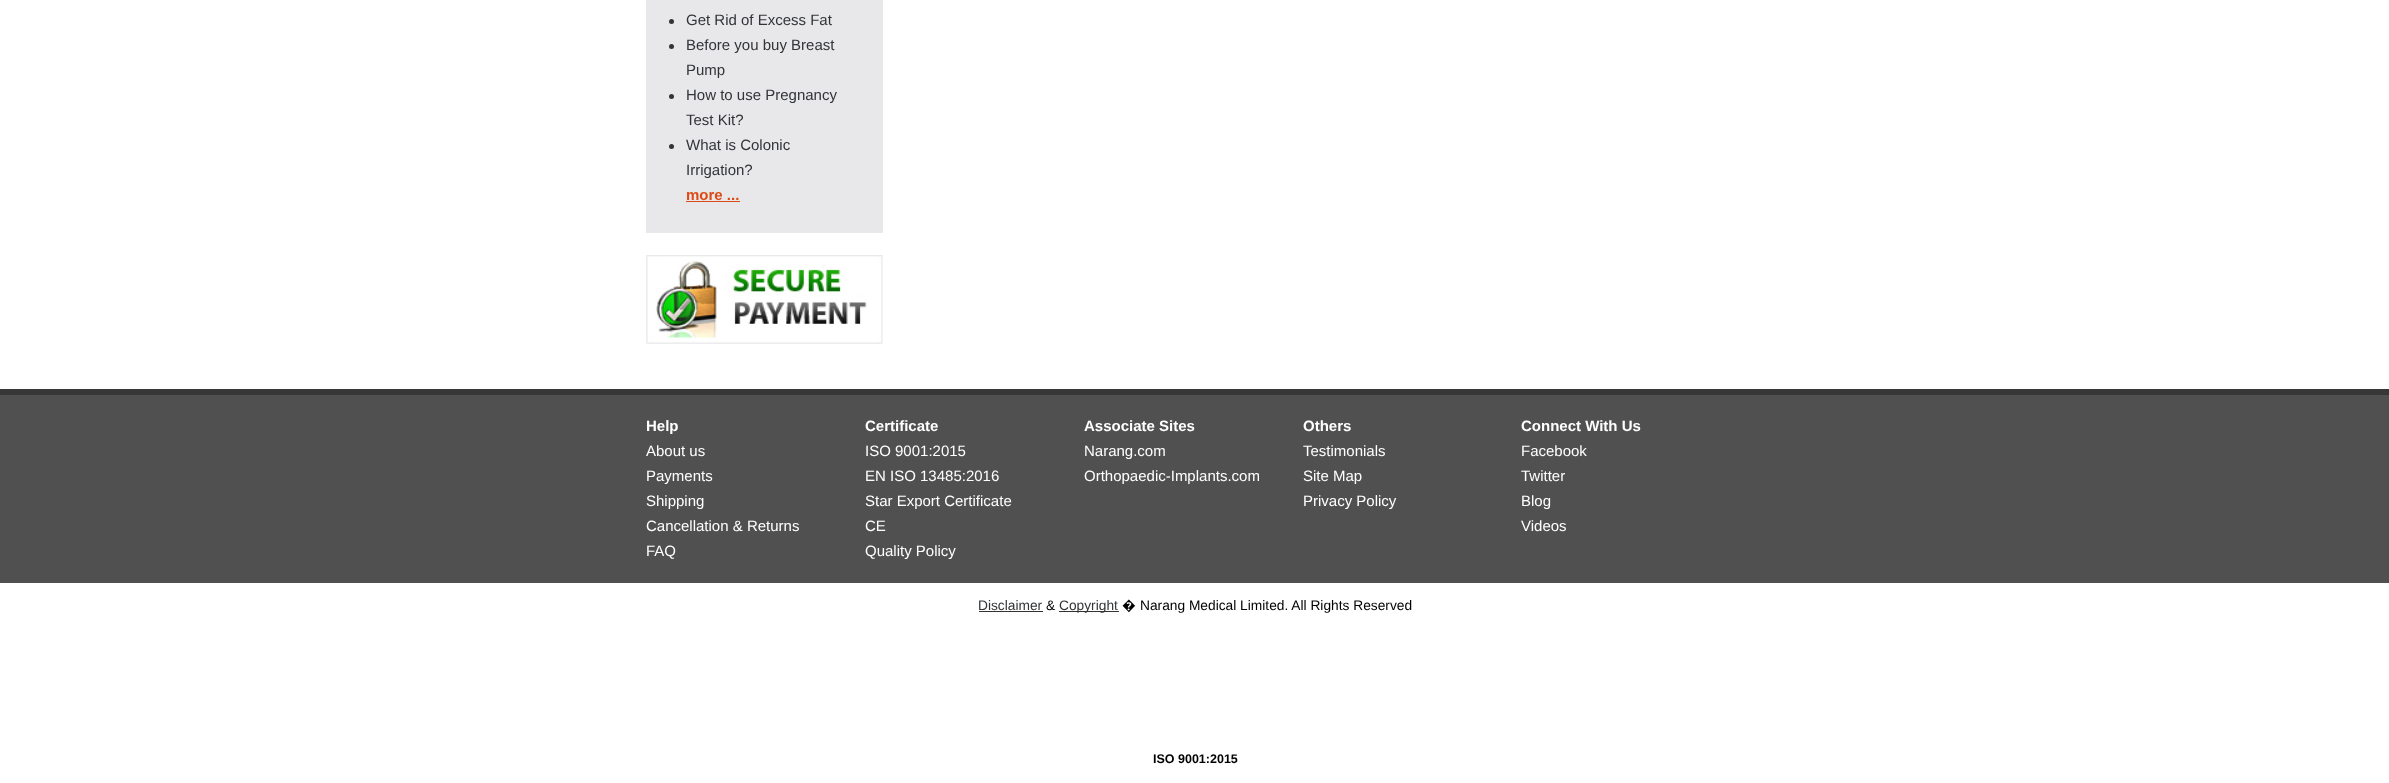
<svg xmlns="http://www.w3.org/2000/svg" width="2389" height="783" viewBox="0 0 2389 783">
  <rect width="100%" height="100%" fill="#ffffff"/>
  <rect x="646" y="0" width="237" height="233" fill="#e8e8ea"/>
  <circle cx="671.5" cy="21.5" r="2.5" fill="#323437"/>
  <text x="686" y="25" font-family="Liberation Sans" font-size="15" fill="#323437">Get Rid of Excess Fat</text>
  <circle cx="671.5" cy="46.5" r="2.5" fill="#323437"/>
  <text x="686" y="50" font-family="Liberation Sans" font-size="15" fill="#323437">Before you buy Breast</text>
  <text x="686" y="75" font-family="Liberation Sans" font-size="15" fill="#323437">Pump</text>
  <circle cx="671.5" cy="96.5" r="2.5" fill="#323437"/>
  <text x="686" y="100" font-family="Liberation Sans" font-size="15" fill="#323437">How to use Pregnancy</text>
  <text x="686" y="125" font-family="Liberation Sans" font-size="15" fill="#323437">Test Kit?</text>
  <circle cx="671.5" cy="146.5" r="2.5" fill="#323437"/>
  <text x="686" y="150" font-family="Liberation Sans" font-size="15" fill="#323437">What is Colonic</text>
  <text x="686" y="175" font-family="Liberation Sans" font-size="15" fill="#323437">Irrigation?</text>
  <text x="686" y="200" font-family="Liberation Sans" font-size="15" font-weight="bold" fill="#de4a16">more ...</text>
  <rect x="686" y="201" width="54" height="1" fill="#de4a16"/>
  <image x="646" y="255" width="237" height="89" href="img1.png"/>
  <rect x="0" y="395" width="2389" height="188" fill="#505050"/>
  <rect x="0" y="389" width="2389" height="6" fill="#373737"/>
  <text x="646" y="431" font-family="Liberation Sans" font-size="15" font-weight="bold" fill="#ffffff">Help</text>
  <text x="646" y="456" font-family="Liberation Sans" font-size="15" fill="#ffffff">About us</text>
  <text x="646" y="481" font-family="Liberation Sans" font-size="15" fill="#ffffff">Payments</text>
  <text x="646" y="506" font-family="Liberation Sans" font-size="15" fill="#ffffff">Shipping</text>
  <text x="646" y="531" font-family="Liberation Sans" font-size="15" fill="#ffffff">Cancellation &amp; Returns</text>
  <text x="646" y="556" font-family="Liberation Sans" font-size="15" fill="#ffffff">FAQ</text>
  <text x="865" y="431" font-family="Liberation Sans" font-size="15" font-weight="bold" fill="#ffffff">Certificate</text>
  <text x="865" y="456" font-family="Liberation Sans" font-size="15" fill="#ffffff">ISO 9001:2015</text>
  <text x="865" y="481" font-family="Liberation Sans" font-size="15" fill="#ffffff">EN ISO 13485:2016</text>
  <text x="865" y="506" font-family="Liberation Sans" font-size="15" fill="#ffffff">Star Export Certificate</text>
  <text x="865" y="531" font-family="Liberation Sans" font-size="15" fill="#ffffff">CE</text>
  <text x="865" y="556" font-family="Liberation Sans" font-size="15" fill="#ffffff">Quality Policy</text>
  <text x="1084" y="431" font-family="Liberation Sans" font-size="15" font-weight="bold" fill="#ffffff">Associate Sites</text>
  <text x="1084" y="456" font-family="Liberation Sans" font-size="15" fill="#ffffff">Narang.com</text>
  <text x="1084" y="481" font-family="Liberation Sans" font-size="15" fill="#ffffff">Orthopaedic-Implants.com</text>
  <text x="1303" y="431" font-family="Liberation Sans" font-size="15" font-weight="bold" fill="#ffffff">Others</text>
  <text x="1303" y="456" font-family="Liberation Sans" font-size="15" fill="#ffffff">Testimonials</text>
  <text x="1303" y="481" font-family="Liberation Sans" font-size="15" fill="#ffffff">Site Map</text>
  <text x="1303" y="506" font-family="Liberation Sans" font-size="15" fill="#ffffff">Privacy Policy</text>
  <text x="1521" y="431" font-family="Liberation Sans" font-size="15" font-weight="bold" fill="#ffffff">Connect With Us</text>
  <text x="1521" y="456" font-family="Liberation Sans" font-size="15" fill="#ffffff">Facebook</text>
  <text x="1521" y="481" font-family="Liberation Sans" font-size="15" fill="#ffffff">Twitter</text>
  <text x="1521" y="506" font-family="Liberation Sans" font-size="15" fill="#ffffff">Blog</text>
  <text x="1521" y="531" font-family="Liberation Sans" font-size="15" fill="#ffffff">Videos</text>
  <text x="978" y="610" font-family="Liberation Sans" font-size="13.75" fill="#323437">Disclaimer</text>
  <rect x="979" y="611" width="64" height="1" fill="#333333"/>
  <text x="1046" y="610" font-family="Liberation Sans" font-size="13.75" fill="#000000">&amp;</text>
  <rect x="1059" y="611" width="60" height="1" fill="#333333"/>
  <text x="1059" y="610" font-family="Liberation Sans" font-size="13.75" fill="#323437">Copyright</text>
  <text x="1122" y="610" font-family="Noto Sans" font-size="13.75" fill="#000000">�</text>
  <text x="1140" y="610" font-family="Liberation Sans" font-size="13.75" fill="#000000">Narang Medical Limited. All Rights Reserved</text>
  <text x="1153" y="763" font-family="Liberation Sans" font-size="12.5" font-weight="bold" fill="#000000">ISO 9001:2015</text>
</svg>
